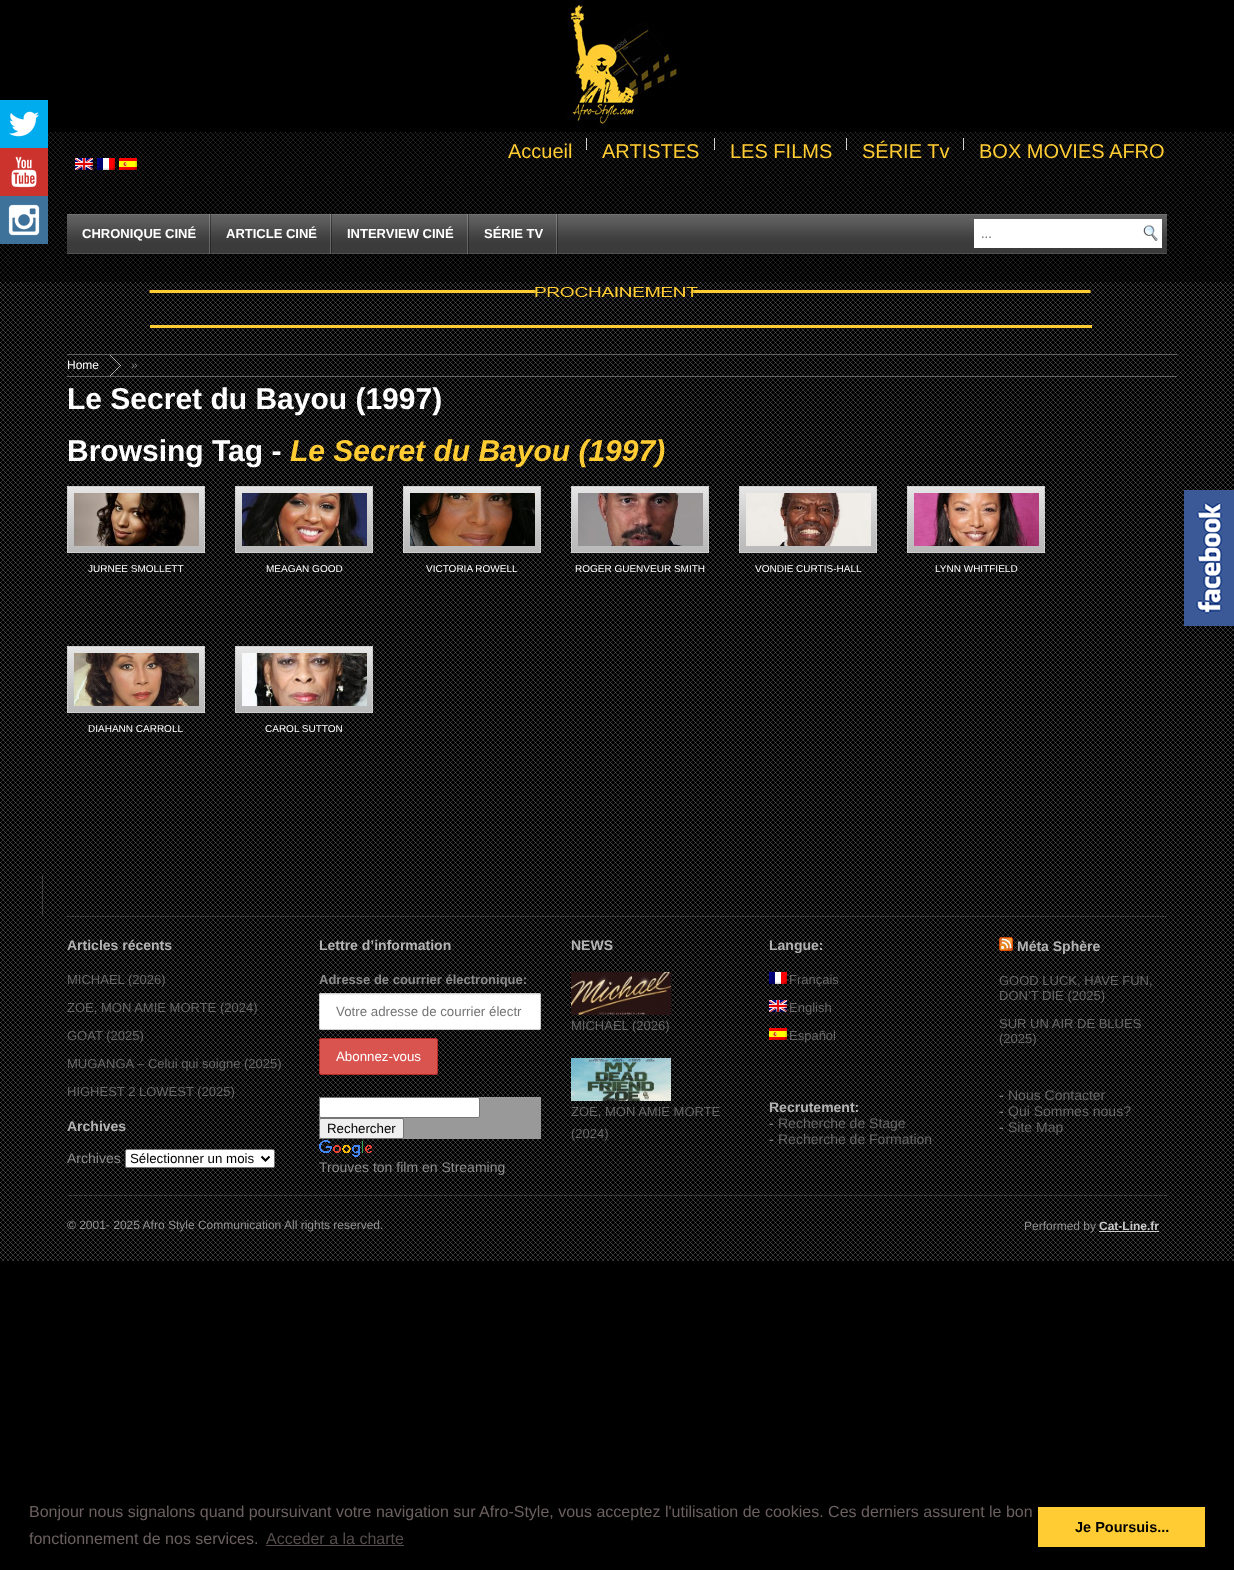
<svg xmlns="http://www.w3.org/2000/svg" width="1234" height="1570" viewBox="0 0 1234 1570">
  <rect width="100%" height="100%" fill="#000000"/>
  <image x="567" y="0" width="113" height="128" href="img1.png"/>
  <image x="0" y="132" width="1234" height="1129" href="img5.png"/>
  <rect x="0" y="100" width="48" height="48" fill="#00aced"/>
  <image x="9" y="111" width="30" height="26" href="img2.png"/>
  <rect x="0" y="148" width="48" height="48" fill="#cd332d"/>
  <image x="11" y="156" width="26" height="32" href="img3.png"/>
  <rect x="0" y="196" width="48" height="48" fill="#3f729b"/>
  <image x="8" y="204" width="32" height="32" href="img4.png"/>
  <image x="586" y="138" width="1" height="12" href="img6.png"/>
  <text x="508" y="158" font-family="Liberation Sans" font-size="20" fill="#ffcc33">Accueil</text>
  <image x="714" y="138" width="1" height="12" href="img6.png"/>
  <text x="602" y="158" font-family="Liberation Sans" font-size="20" fill="#ffcc33">ARTISTES</text>
  <image x="846" y="138" width="1" height="12" href="img6.png"/>
  <text x="730" y="158" font-family="Liberation Sans" font-size="20" fill="#ffcc33">LES FILMS</text>
  <image x="963" y="138" width="1" height="12" href="img6.png"/>
  <text x="862" y="158" font-family="Liberation Sans" font-size="20" fill="#ffcc33">SÉRIE Tv</text>
  <text x="979" y="158" font-family="Liberation Sans" font-size="20" fill="#ffcc33">BOX MOVIES AFRO</text>
  <image x="75" y="158" width="18" height="12" href="img7.png"/>
  <image x="97" y="158" width="18" height="12" href="img8.png"/>
  <image x="119" y="158" width="18" height="12" href="img9.png"/>
  <image x="67" y="214" width="1100" height="42" href="img10.png"/>
  <image x="209" y="214" width="2" height="40" href="img11.png"/>
  <text x="82" y="238" font-family="Liberation Sans" font-size="13" font-weight="bold" fill="#ffffff">CHRONIQUE CINÉ</text>
  <image x="330" y="214" width="2" height="40" href="img11.png"/>
  <text x="226" y="238" font-family="Liberation Sans" font-size="13" font-weight="bold" fill="#ffffff">ARTICLE CINÉ</text>
  <image x="467" y="214" width="2" height="40" href="img11.png"/>
  <text x="347" y="238" font-family="Liberation Sans" font-size="13" font-weight="bold" fill="#ffffff">INTERVIEW CINÉ</text>
  <image x="556" y="214" width="2" height="40" href="img11.png"/>
  <text x="484" y="238" font-family="Liberation Sans" font-size="13" font-weight="bold" fill="#ffffff">SÉRIE TV</text>
  <rect x="974" y="219" width="188" height="29" fill="#ffffff"/>
  <text x="981" y="238" font-family="Liberation Sans" font-size="13" fill="#666666">...</text>
  <image x="1143" y="225" width="15" height="16" href="img12.png"/>
  <image x="0" y="282" width="1234" height="979" href="img13.png"/>
  <image x="149" y="287" width="942" height="10" href="img14.png"/>
  <rect x="150" y="325" width="942" height="3" fill="#ffcc33"/>
  <rect x="67" y="354" width="1110" height="1" fill="#5f5f5f"/>
  <rect x="67" y="376" width="1110" height="1" fill="#5f5f5f"/>
  <image x="110" y="355" width="11" height="21" href="img15.png"/>
  <text x="67" y="369" font-family="Liberation Sans" font-size="12" fill="#ffffff">Home</text>
  <text x="131" y="369" font-family="Liberation Sans" font-size="12" fill="#757575">»</text>
  <text x="67" y="409" font-family="Liberation Sans" font-size="30" font-weight="bold" fill="#ffffff">Le Secret du Bayou (1997)</text>
  <text x="67" y="461" font-family="Liberation Sans" font-size="30" font-weight="bold" fill="#ffffff">Browsing Tag -</text>
  <text x="290" y="461" font-family="Liberation Sans" font-size="30" font-weight="bold" font-style="italic" fill="#ffcc33">Le Secret du Bayou (1997)</text>
  <image x="68" y="487" width="136" height="65" href="img16.png"/>
  <rect x="67.5" y="486.5" width="137" height="66" fill="none" stroke="#cfcfcf"/>
  <image x="74" y="493" width="125" height="53" href="img17.png"/>
  <text x="88" y="572" font-family="Liberation Sans" font-size="10" fill="#ffffff">JURNEE SMOLLETT</text>
  <image x="236" y="487" width="136" height="65" href="img16.png"/>
  <rect x="235.5" y="486.5" width="137" height="66" fill="none" stroke="#cfcfcf"/>
  <image x="242" y="493" width="125" height="53" href="img18.png"/>
  <text x="266" y="572" font-family="Liberation Sans" font-size="10" fill="#ffffff">MEAGAN GOOD</text>
  <image x="404" y="487" width="136" height="65" href="img16.png"/>
  <rect x="403.5" y="486.5" width="137" height="66" fill="none" stroke="#cfcfcf"/>
  <image x="410" y="493" width="125" height="53" href="img19.png"/>
  <text x="426" y="572" font-family="Liberation Sans" font-size="10" fill="#ffffff">VICTORIA ROWELL</text>
  <image x="572" y="487" width="136" height="65" href="img16.png"/>
  <rect x="571.5" y="486.5" width="137" height="66" fill="none" stroke="#cfcfcf"/>
  <image x="578" y="493" width="125" height="53" href="img20.png"/>
  <text x="575" y="572" font-family="Liberation Sans" font-size="10" fill="#ffffff">ROGER GUENVEUR SMITH</text>
  <image x="740" y="487" width="136" height="65" href="img16.png"/>
  <rect x="739.5" y="486.5" width="137" height="66" fill="none" stroke="#cfcfcf"/>
  <image x="746" y="493" width="125" height="53" href="img21.png"/>
  <text x="755" y="572" font-family="Liberation Sans" font-size="10" fill="#ffffff">VONDIE CURTIS-HALL</text>
  <image x="908" y="487" width="136" height="65" href="img16.png"/>
  <rect x="907.5" y="486.5" width="137" height="66" fill="none" stroke="#cfcfcf"/>
  <image x="914" y="493" width="125" height="53" href="img22.png"/>
  <text x="935" y="572" font-family="Liberation Sans" font-size="10" fill="#ffffff">LYNN WHITFIELD</text>
  <image x="68" y="647" width="136" height="65" href="img16.png"/>
  <rect x="67.5" y="646.5" width="137" height="66" fill="none" stroke="#cfcfcf"/>
  <image x="74" y="653" width="125" height="53" href="img23.png"/>
  <text x="88" y="732" font-family="Liberation Sans" font-size="10" fill="#ffffff">DIAHANN CARROLL</text>
  <image x="236" y="647" width="136" height="65" href="img16.png"/>
  <rect x="235.5" y="646.5" width="137" height="66" fill="none" stroke="#cfcfcf"/>
  <image x="242" y="653" width="125" height="53" href="img24.png"/>
  <text x="265" y="732" font-family="Liberation Sans" font-size="10" fill="#ffffff">CAROL SUTTON</text>
  <rect x="42" y="876" width="1" height="40" fill="#3e3e3e"/>
  <rect x="67" y="916" width="1100" height="1" fill="#373737"/>
  <rect x="67" y="1195" width="1100" height="1" fill="#373737"/>
  <text x="67" y="950" font-family="Liberation Sans" font-size="14" font-weight="bold" fill="#b6b5b5">Articles récents</text>
  <text x="67" y="984" font-family="Liberation Sans" font-size="13" fill="#666666">MICHAEL (2026)</text>
  <text x="67" y="1012" font-family="Liberation Sans" font-size="13" fill="#666666">ZOE, MON AMIE MORTE (2024)</text>
  <text x="67" y="1040" font-family="Liberation Sans" font-size="13" fill="#666666">GOAT (2025)</text>
  <text x="67" y="1068" font-family="Liberation Sans" font-size="13" fill="#666666">MUGANGA – Celui qui soigne (2025)</text>
  <text x="67" y="1096" font-family="Liberation Sans" font-size="13" fill="#666666">HIGHEST 2 LOWEST (2025)</text>
  <text x="67" y="1131" font-family="Liberation Sans" font-size="14" font-weight="bold" fill="#b6b5b5">Archives</text>
  <text x="67" y="1163" font-family="Liberation Sans" font-size="14" fill="#8c8c8c">Archives</text>
  <rect x="125.5" y="1149.5" width="149" height="18" rx="1.5" fill="#ffffff" stroke="#767676"/>
  <path d="M261.5 1156.5L265.5 1160.5L269.5 1156.5" fill="none" stroke="#000000" stroke-width="2"/>
  <text x="130" y="1163" font-family="Liberation Sans" font-size="13.3" fill="#000000">Sélectionner un mois</text>
  <text x="319" y="950" font-family="Liberation Sans" font-size="14" font-weight="bold" fill="#b6b5b5">Lettre d’information</text>
  <text x="319" y="984" font-family="Liberation Sans" font-size="13" font-weight="bold" fill="#8c8c8c">Adresse de courrier électronique:</text>
  <rect x="319" y="993" width="222" height="37" rx="2" fill="#ffffff"/>
  <path d="M321 995H540V996C540 995 540 994 539 994H320V996C320 995 320 995 321 995Z" fill="#ececec"/>
  <rect x="319.5" y="993.5" width="221" height="36" rx="1.5" fill="none" stroke="#cccccc"/>
  <text x="336" y="1016" font-family="Liberation Sans" font-size="13.3" fill="#757575">Votre adresse de courrier électr</text>
  <rect x="319.5" y="1038.5" width="118" height="36" rx="1.5" fill="#d9534f" stroke="#b52b27"/>
  <text x="336" y="1061" font-family="Liberation Sans" font-size="13.3" fill="#ffffff">Abonnez-vous</text>
  <rect x="319" y="1097" width="222" height="42" fill="#999999"/>
  <rect x="319.5" y="1097.5" width="160" height="20" rx="1.5" fill="#ffffff" stroke="#767676"/>
  <rect x="319.5" y="1118.5" width="84" height="20" rx="1.5" fill="#efefef" stroke="#767676"/>
  <text x="327" y="1133" font-family="Liberation Sans" font-size="13.3" fill="#000000">Rechercher</text>
  <image x="319" y="1140" width="53" height="17" href="img25.png"/>
  <text x="319" y="1172" font-family="Liberation Sans" font-size="14" fill="#8c8c8c">Trouves ton film en Streaming</text>
  <text x="571" y="950" font-family="Liberation Sans" font-size="14" font-weight="bold" fill="#b6b5b5">NEWS</text>
  <image x="571" y="972" width="100" height="43" href="img26.png"/>
  <text x="571" y="1030" font-family="Liberation Sans" font-size="13" fill="#666666">MICHAEL (2026)</text>
  <image x="571" y="1058" width="100" height="43" href="img27.png"/>
  <text x="571" y="1116" font-family="Liberation Sans" font-size="13" fill="#666666">ZOE, MON AMIE MORTE</text>
  <text x="571" y="1138" font-family="Liberation Sans" font-size="13" fill="#666666">(2024)</text>
  <text x="769" y="950" font-family="Liberation Sans" font-size="14" font-weight="bold" fill="#b6b5b5">Langue:</text>
  <image x="769" y="972" width="18" height="12" href="img8.png"/>
  <text x="789" y="984" font-family="Liberation Sans" font-size="13" fill="#666666">Français</text>
  <image x="769" y="1000" width="18" height="12" href="img7.png"/>
  <text x="789" y="1012" font-family="Liberation Sans" font-size="13" fill="#666666">English</text>
  <image x="769" y="1028" width="18" height="12" href="img9.png"/>
  <text x="789" y="1040" font-family="Liberation Sans" font-size="13" fill="#666666">Español</text>
  <text x="769" y="1112" font-family="Liberation Sans" font-size="14" font-weight="bold" fill="#b6b5b5">Recrutement:</text>
  <text x="769" y="1128" font-family="Liberation Sans" font-size="14" fill="#8c8c8c">-</text>
  <text x="778" y="1128" font-family="Liberation Sans" font-size="14" fill="#666666">Recherche de Stage</text>
  <text x="769" y="1144" font-family="Liberation Sans" font-size="14" fill="#8c8c8c">-</text>
  <text x="778" y="1144" font-family="Liberation Sans" font-size="14" fill="#666666">Recherche de Formation</text>
  <image x="999" y="937" width="14" height="14" href="img28.png"/>
  <text x="1017" y="951" font-family="Liberation Sans" font-size="14" font-weight="bold" fill="#b6b5b5">Méta Sphère</text>
  <text x="999" y="985" font-family="Liberation Sans" font-size="13" fill="#666666">GOOD LUCK, HAVE FUN,</text>
  <text x="999" y="1000" font-family="Liberation Sans" font-size="13" fill="#666666">DON’T DIE (2025)</text>
  <text x="999" y="1028" font-family="Liberation Sans" font-size="13" fill="#666666">SUR UN AIR DE BLUES</text>
  <text x="999" y="1043" font-family="Liberation Sans" font-size="13" fill="#666666">(2025)</text>
  <text x="999" y="1100" font-family="Liberation Sans" font-size="14" fill="#8c8c8c">-</text>
  <text x="1008" y="1100" font-family="Liberation Sans" font-size="14" fill="#666666">Nous Contacter</text>
  <text x="999" y="1116" font-family="Liberation Sans" font-size="14" fill="#8c8c8c">-</text>
  <text x="1008" y="1116" font-family="Liberation Sans" font-size="14" fill="#666666">Qui Sommes nous?</text>
  <text x="999" y="1132" font-family="Liberation Sans" font-size="14" fill="#8c8c8c">-</text>
  <text x="1008" y="1132" font-family="Liberation Sans" font-size="14" fill="#666666">Site Map</text>
  <text x="67" y="1229" font-family="Liberation Sans" font-size="12" fill="#929292">© 2001- 2025 Afro Style Communication All rights reserved.</text>
  <text x="1024" y="1230" font-family="Liberation Sans" font-size="12" fill="#929292">Performed by</text>
  <text x="1099" y="1230" font-family="Liberation Sans" font-size="12" font-weight="bold" fill="#cccccc">Cat-Line.fr</text>
  <rect x="1099" y="1231" width="60" height="1" fill="#cccccc"/>
  <image x="1184" y="490" width="50" height="136" href="img29.png"/>
  <text x="29" y="1517" font-family="Liberation Sans" font-size="16" fill="#6c6060">Bonjour nous signalons quand poursuivant votre navigation sur Afro-Style, vous acceptez l'utilisation de cookies. Ces derniers assurent le bon</text>
  <text x="29" y="1544" font-family="Liberation Sans" font-size="16" fill="#6c6060">fonctionnement de nos services.</text>
  <text x="266" y="1544" font-family="Liberation Sans" font-size="16" fill="#564d4d">Acceder a la charte</text>
  <rect x="266" y="1545" width="138" height="1" fill="#564d4d"/>
  <rect x="1038" y="1507" width="167" height="40" fill="#ffcc33"/>
  <text x="1075" y="1532" font-family="Liberation Sans" font-size="14.5" font-weight="bold" fill="#000000">Je Poursuis...</text>
</svg>
